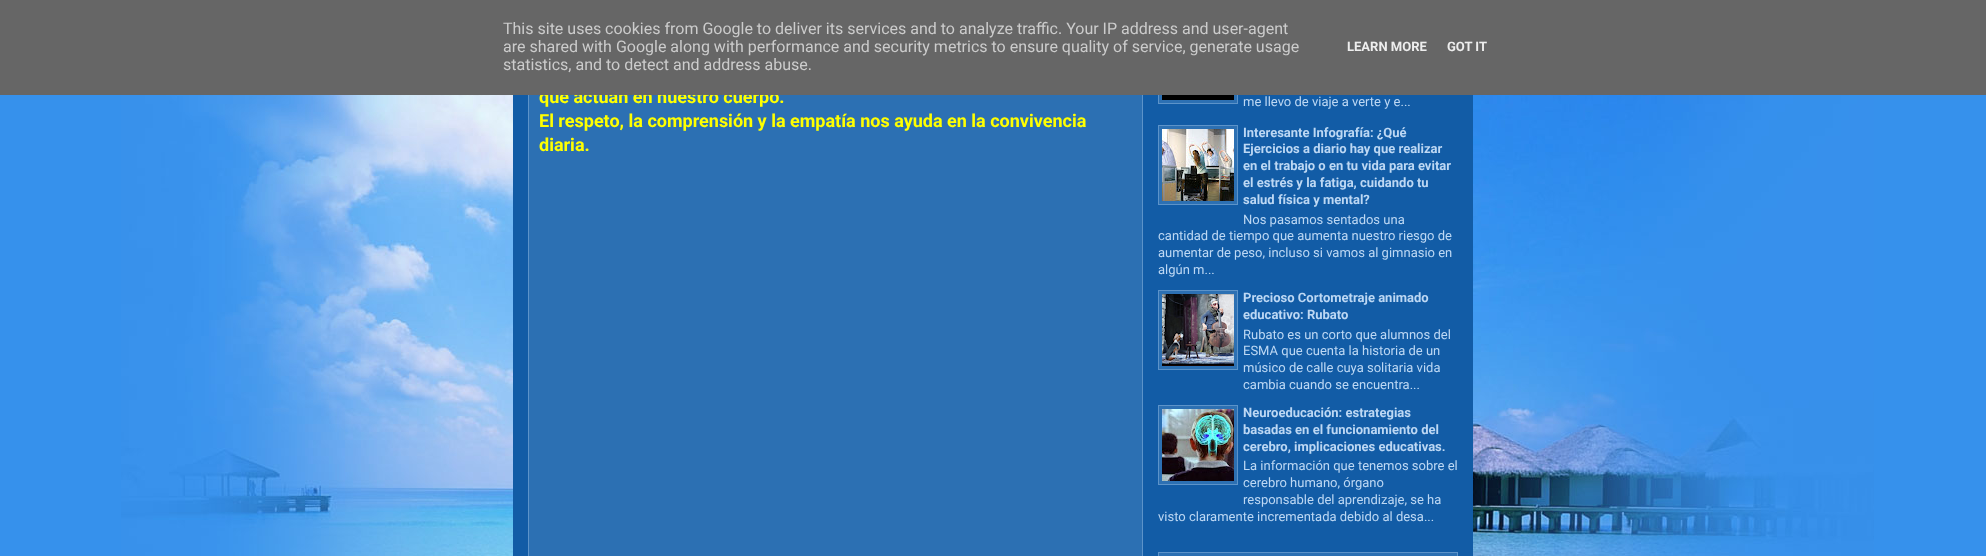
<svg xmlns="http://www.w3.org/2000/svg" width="1986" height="556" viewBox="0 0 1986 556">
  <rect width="100%" height="100%" fill="#3691ec"/>
  <image x="121" y="95" width="1753" height="461" href="img1.png"/>
  <rect x="513" y="95" width="960" height="461" fill="#125ca6"/>
  <rect x="529" y="95" width="613" height="461" fill="#2c70b3"/>
  <rect x="528.5" y="-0.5" width="614" height="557" fill="none" stroke="#5c93c9"/>
  <text x="539" y="103" font-family="Roboto" font-size="18" font-weight="bold" fill="#ffff00">que actúan en nuestro cuerpo.</text>
  <rect x="1159" y="95" width="78" height="8" fill="#2c70b3"/>
  <rect x="1158.5" y="24.5" width="79" height="79" fill="none" stroke="#5c93c9"/>
  <rect x="0" y="0" width="1986" height="95" fill="#666666"/>
  <text x="503" y="34" font-family="Roboto" font-size="16" fill="#cccccc">This site uses cookies from Google to deliver its services and to analyze traffic. Your IP address and user-agent</text>
  <text x="503" y="52" font-family="Roboto" font-size="16" fill="#cccccc">are shared with Google along with performance and security metrics to ensure quality of service, generate usage</text>
  <text x="503" y="70" font-family="Roboto" font-size="16" fill="#cccccc">statistics, and to detect and address abuse.</text>
  <text x="1347" y="51" font-family="Roboto" font-size="13" font-weight="bold" fill="#eeeeee">LEARN MORE</text>
  <text x="1447" y="51" font-family="Roboto" font-size="13" font-weight="bold" fill="#eeeeee">GOT IT</text>
  <text x="539" y="127" font-family="Roboto" font-size="18" font-weight="bold" fill="#ffff00">El respeto, la comprensión y la empatía nos ayuda en la convivencia</text>
  <text x="539" y="151" font-family="Roboto" font-size="18" font-weight="bold" fill="#ffff00">diaria.</text>
  <image x="1162" y="95" width="72" height="5" href="img2.png"/>
  <text x="1243" y="106" font-family="Roboto" font-size="13" fill="#bdd8f4">me llevo de viaje a verte y e...</text>
  <rect x="1158.5" y="125.5" width="79" height="79" fill="#2c70b3" stroke="#5c93c9"/>
  <image x="1162" y="129" width="72" height="72" href="img3.png"/>
  <text x="1243" y="137" font-family="Roboto" font-size="13" font-weight="bold" fill="#bdd8f4">Interesante Infografía: ¿Qué</text>
  <text x="1243" y="153" font-family="Roboto" font-size="13" font-weight="bold" fill="#bdd8f4">Ejercicios a diario hay que realizar</text>
  <text x="1243" y="170" font-family="Roboto" font-size="13" font-weight="bold" fill="#bdd8f4">en el trabajo o en tu vida para evitar</text>
  <text x="1243" y="187" font-family="Roboto" font-size="13" font-weight="bold" fill="#bdd8f4">el estrés y la fatiga, cuidando tu</text>
  <text x="1243" y="204" font-family="Roboto" font-size="13" font-weight="bold" fill="#bdd8f4">salud física y mental?</text>
  <text x="1243" y="224" font-family="Roboto" font-size="13" fill="#bdd8f4">Nos pasamos sentados una</text>
  <text x="1158" y="240" font-family="Roboto" font-size="13" fill="#bdd8f4">cantidad de tiempo que aumenta nuestro riesgo de</text>
  <text x="1158" y="257" font-family="Roboto" font-size="13" fill="#bdd8f4">aumentar de peso, incluso si vamos al gimnasio en</text>
  <text x="1158" y="274" font-family="Roboto" font-size="13" fill="#bdd8f4">algún m...</text>
  <rect x="1158.5" y="290.5" width="79" height="79" fill="#2c70b3" stroke="#5c93c9"/>
  <image x="1162" y="294" width="72" height="72" href="img4.png"/>
  <text x="1243" y="302" font-family="Roboto" font-size="13" font-weight="bold" fill="#bdd8f4">Precioso Cortometraje animado</text>
  <text x="1243" y="319" font-family="Roboto" font-size="13" font-weight="bold" fill="#bdd8f4">educativo: Rubato</text>
  <text x="1243" y="339" font-family="Roboto" font-size="13" fill="#bdd8f4">Rubato es un corto que alumnos del</text>
  <text x="1243" y="355" font-family="Roboto" font-size="13" fill="#bdd8f4">ESMA que cuenta la historia de un</text>
  <text x="1243" y="372" font-family="Roboto" font-size="13" fill="#bdd8f4">músico de calle cuya solitaria vida</text>
  <text x="1243" y="389" font-family="Roboto" font-size="13" fill="#bdd8f4">cambia cuando se encuentra...</text>
  <rect x="1158.5" y="405.5" width="79" height="79" fill="#2c70b3" stroke="#5c93c9"/>
  <image x="1162" y="409" width="72" height="72" href="img5.png"/>
  <text x="1243" y="417" font-family="Roboto" font-size="13" font-weight="bold" fill="#bdd8f4">Neuroeducación: estrategias</text>
  <text x="1243" y="434" font-family="Roboto" font-size="13" font-weight="bold" fill="#bdd8f4">basadas en el funcionamiento del</text>
  <text x="1243" y="451" font-family="Roboto" font-size="13" font-weight="bold" fill="#bdd8f4">cerebro, implicaciones educativas.</text>
  <text x="1243" y="470" font-family="Roboto" font-size="13" fill="#bdd8f4">La información que tenemos sobre el</text>
  <text x="1243" y="487" font-family="Roboto" font-size="13" fill="#bdd8f4">cerebro humano, órgano</text>
  <text x="1243" y="504" font-family="Roboto" font-size="13" fill="#bdd8f4">responsable del aprendizaje, se ha</text>
  <text x="1158" y="521" font-family="Roboto" font-size="13" fill="#bdd8f4">visto claramente incrementada debido al desa...</text>
  <rect x="1158.5" y="552.5" width="299" height="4" fill="#2c70b3" stroke="#5c93c9"/>
</svg>
